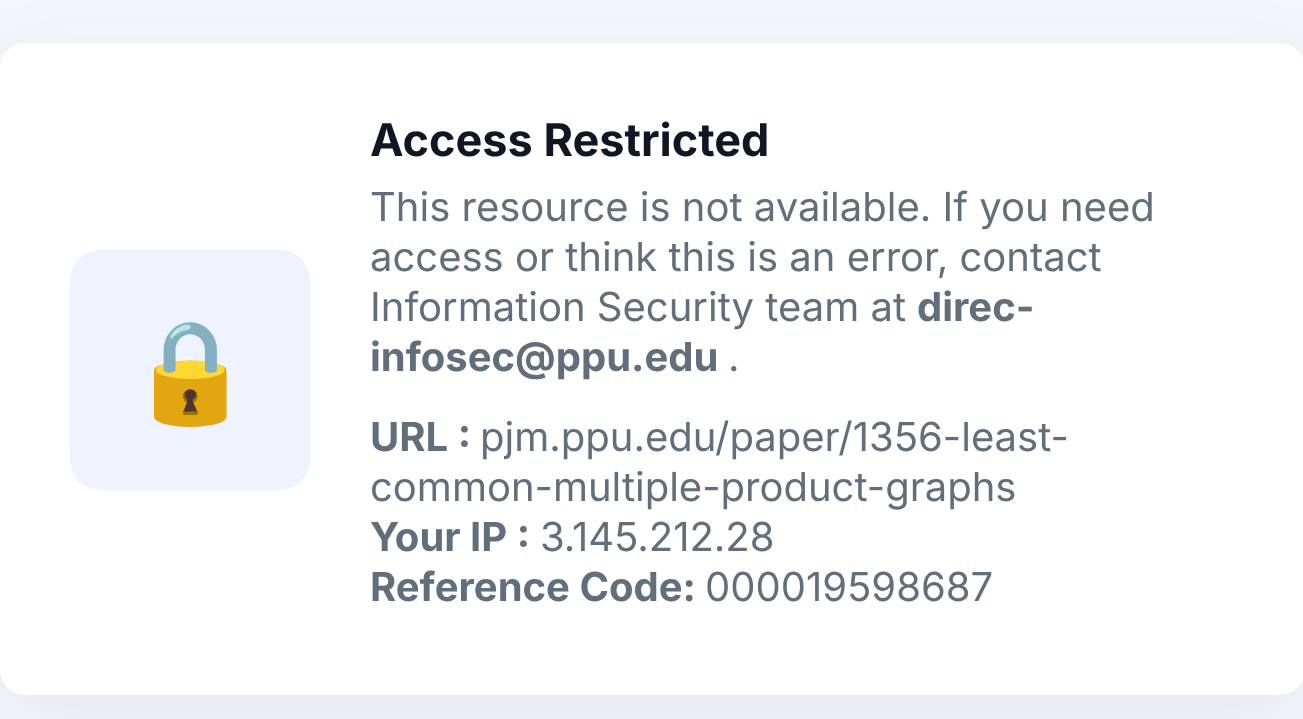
<svg xmlns="http://www.w3.org/2000/svg" width="1303" height="719" viewBox="0 0 1303 719">
  <defs>
    <filter id="blur1" x="-50%" y="-200%" width="200%" height="500%"><feGaussianBlur stdDeviation="37.5"/></filter>
  </defs>
  <rect width="100%" height="100%" fill="#f4f6fb"/>
  <rect x="0" y="63" width="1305" height="652" rx="25" fill="#0f1722" fill-opacity="0.06" filter="url(#blur1)"/>
  <rect x="0" y="43" width="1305" height="652" rx="25" fill="#ffffff"/>
  <rect x="70" y="250" width="240" height="240" rx="30" fill="#eef3ff"/>
  <text x="128" y="406" font-family="Noto Color Emoji" font-size="100" fill="#0f1724">🔒</text>
  <text x="370" y="156" font-family="Inter" font-size="45" font-weight="bold" fill="#0f1724">Access Restricted</text>
  <text x="370" y="221" font-family="Inter" font-size="40" fill="#606f7b">This resource is not available. If you need</text>
  <text x="370" y="271" font-family="Inter" font-size="40" fill="#606f7b">access or think this is an error, contact</text>
  <text x="370" y="321" font-family="Inter" font-size="40" fill="#606f7b">Information Security team at</text>
  <text x="917" y="321" font-family="Inter" font-size="40" font-weight="bold" fill="#606f7b">direc-</text>
  <text x="370" y="371" font-family="Inter" font-size="40" font-weight="bold" fill="#606f7b">infosec@ppu.edu</text>
  <text x="728" y="371" font-family="Inter" font-size="40" fill="#606f7b">.</text>
  <text x="370" y="451" font-family="Inter" font-size="40" font-weight="bold" fill="#606f7b">URL :</text>
  <text x="480" y="451" font-family="Inter" font-size="40" fill="#606f7b">pjm.ppu.edu/paper/1356-least-</text>
  <text x="370" y="501" font-family="Inter" font-size="40" fill="#606f7b">common-multiple-product-graphs</text>
  <text x="370" y="551" font-family="Inter" font-size="40" font-weight="bold" fill="#606f7b">Your IP :</text>
  <text x="540" y="551" font-family="Inter" font-size="40" fill="#606f7b">3.145.212.28</text>
  <text x="370" y="601" font-family="Inter" font-size="40" font-weight="bold" fill="#606f7b">Reference Code:</text>
  <text x="705" y="601" font-family="Inter" font-size="40" fill="#606f7b">000019598687</text>
</svg>
